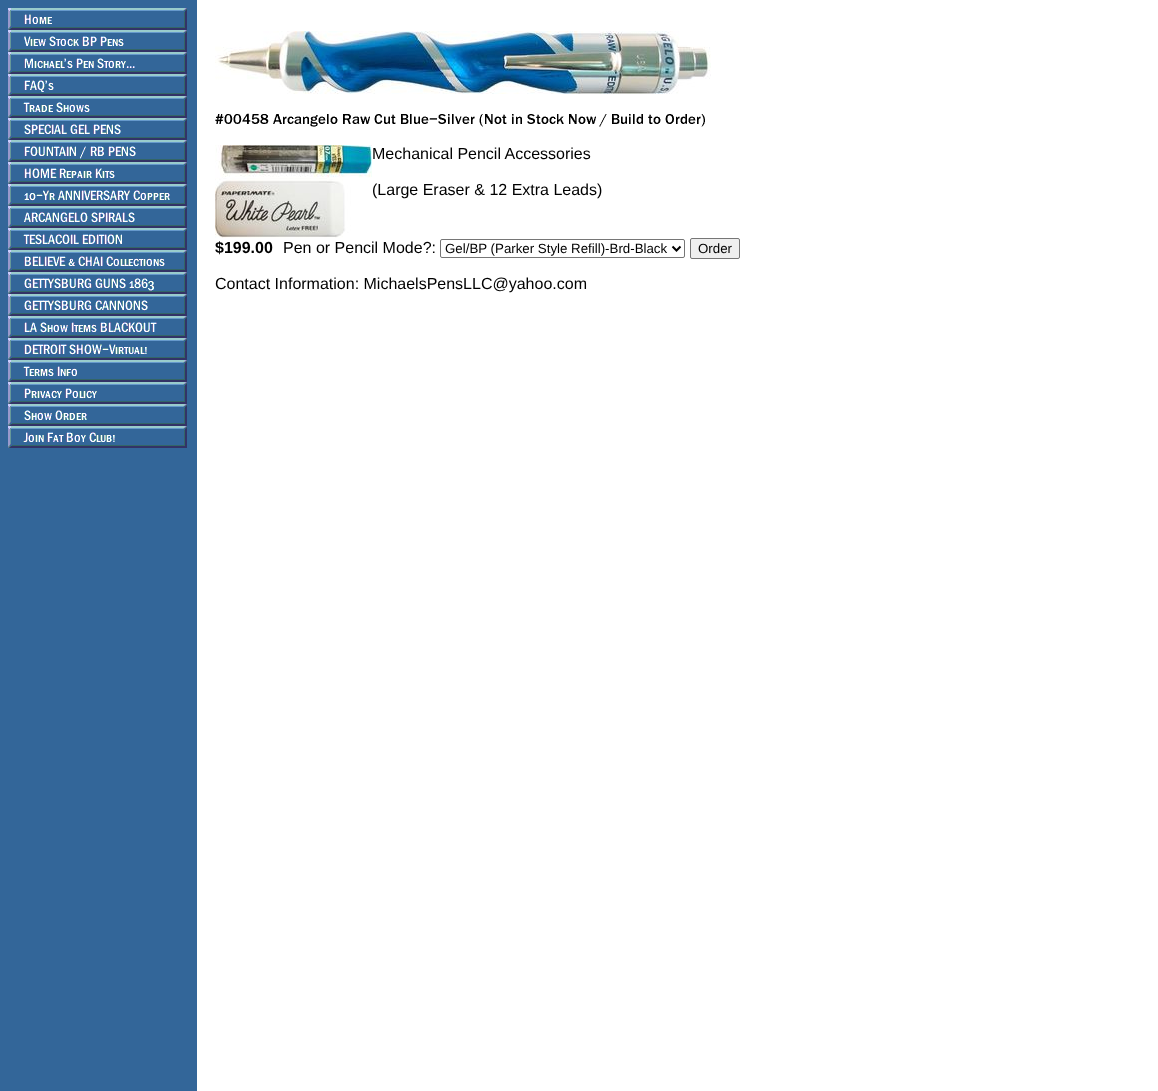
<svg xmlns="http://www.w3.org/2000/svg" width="1158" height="1091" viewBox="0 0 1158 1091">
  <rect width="100%" height="100%" fill="#ffffff"/>
  <rect x="0" y="0" width="197" height="1091" fill="#336699"/>
  <image x="8" y="8" width="179" height="440" href="img1.png"/>
  <image x="215" y="31" width="496" height="63" href="img2.png"/>
  <image x="215" y="113" width="490" height="14" href="img3.png"/>
  <image x="215" y="145" width="157" height="93" href="img4.png"/>
  <text x="372" y="159" font-family="Liberation Sans" font-size="16" fill="#000000">Mechanical Pencil Accessories</text>
  <text x="372" y="195" font-family="Liberation Sans" font-size="16" fill="#000000">(Large Eraser &amp; 12 Extra Leads)</text>
  <text x="215" y="253" font-family="Liberation Sans" font-size="16" font-weight="bold" fill="#000000">$199.00</text>
  <text x="283" y="253" font-family="Liberation Sans" font-size="16" fill="#000000">Pen or Pencil Mode?:</text>
  <rect x="440.5" y="239.5" width="244" height="18" rx="1.5" fill="none" stroke="#767676"/>
  <path d="M672.5 246.5L676.5 250.5L680.5 246.5" fill="none" stroke="#000000" stroke-width="2"/>
  <text x="445" y="253" font-family="Liberation Sans" font-size="13.3" fill="#000000">Gel/BP (Parker Style Refill)-Brd-Black</text>
  <rect x="690.5" y="238.5" width="49" height="20" rx="1.5" fill="#efefef" stroke="#767676"/>
  <text x="698" y="253" font-family="Liberation Sans" font-size="13.3" fill="#000000">Order</text>
  <text x="215" y="289" font-family="Liberation Sans" font-size="16" fill="#000000">Contact Information: MichaelsPensLLC@yahoo.com</text>
</svg>
